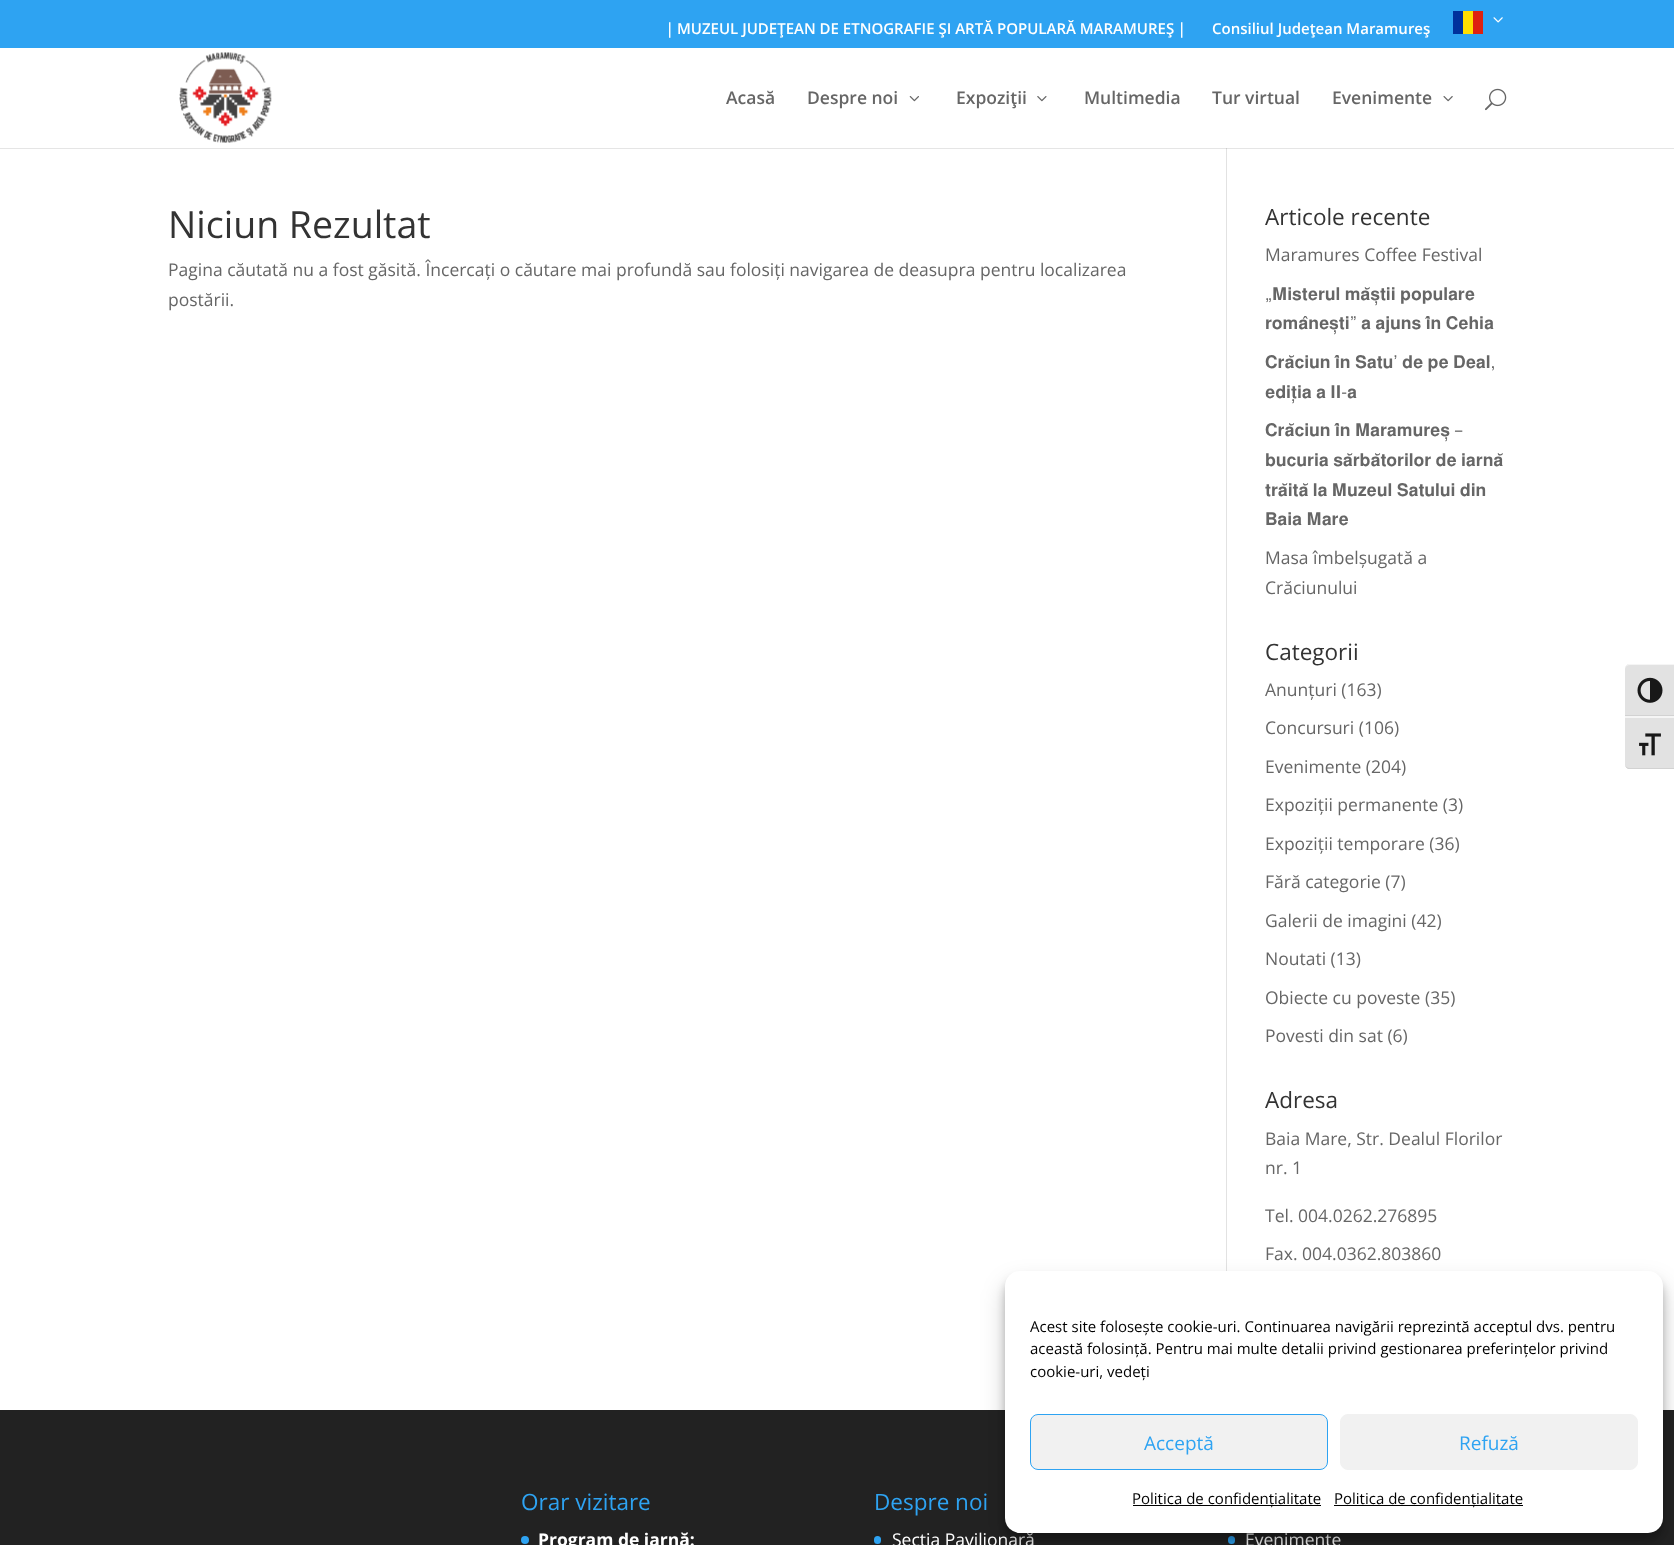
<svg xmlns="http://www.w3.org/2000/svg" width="1674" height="1545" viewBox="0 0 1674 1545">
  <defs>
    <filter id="blur1" x="-50%" y="-200%" width="200%" height="500%"><feGaussianBlur stdDeviation="4"/></filter>
    <filter id="blur2" x="-50%" y="-200%" width="200%" height="500%"><feGaussianBlur stdDeviation="12.5"/></filter>
  </defs>
  <rect width="100%" height="100%" fill="#ffffff"/>
  <rect x="0" y="0" width="1674" height="48" fill="#2ea3f2"/>
  <text x="662" y="34" font-family="WenQuanYi Zen Hei" font-size="15" font-weight="bold" fill="#ffffff">｜</text>
  <text x="677" y="34" font-family="Open Sans" font-size="15" font-weight="600" fill="#ffffff">MUZEUL JUDEŢEAN DE ETNOGRAFIE ŞI ARTĂ POPULARĂ MARAMUREŞ</text>
  <text x="1174" y="34" font-family="WenQuanYi Zen Hei" font-size="15" font-weight="bold" fill="#ffffff">｜</text>
  <text x="1212" y="34" font-family="Open Sans" font-size="15" font-weight="600" fill="#ffffff">Consiliul Judeţean Maramureş</text>
  <rect x="1453" y="11" width="10" height="23" fill="#00319c"/>
  <rect x="1463" y="11" width="10" height="23" fill="#ffde00"/>
  <rect x="1473" y="11" width="10" height="23" fill="#de2110"/>
  <image x="1493" y="17" width="10" height="6" href="img1.png"/>
  <rect x="1226" y="148" width="1" height="1123" fill="#e2e2e2"/>
  <rect x="0" y="148" width="1674" height="1" fill="#000000" fill-opacity="0.1"/>
  <image x="179" y="52" width="93" height="91" href="img2.png"/>
  <text x="726" y="104" font-family="Open Sans" font-size="17.5" font-weight="600" fill="#666666">Acasă</text>
  <text x="807" y="104" font-family="Open Sans" font-size="17.5" font-weight="600" fill="#666666">Despre noi</text>
  <image x="909" y="96" width="10" height="6" href="img3.png"/>
  <text x="956" y="104" font-family="Open Sans" font-size="17.5" font-weight="600" fill="#666666">Expoziţii</text>
  <image x="1037" y="96" width="10" height="6" href="img4.png"/>
  <text x="1084" y="104" font-family="Open Sans" font-size="17.5" font-weight="600" fill="#666666">Multimedia</text>
  <text x="1212" y="104" font-family="Open Sans" font-size="17.5" font-weight="600" fill="#666666">Tur virtual</text>
  <text x="1332" y="104" font-family="Open Sans" font-size="17.5" font-weight="600" fill="#666666">Evenimente</text>
  <image x="1443" y="96" width="10" height="6" href="img5.png"/>
  <image x="1485" y="88" width="22" height="23" href="img6.png"/>
  <text x="168" y="238" font-family="Open Sans" font-size="37.5" fill="#333333">Niciun Rezultat</text>
  <text x="168" y="276" font-family="Open Sans" font-size="17.5" fill="#666666">Pagina căutată nu a fost găsită. Încercați o căutare mai profundă sau folosiți navigarea de deasupra pentru localizarea</text>
  <text x="168" y="306" font-family="Open Sans" font-size="17.5" fill="#666666">postării.</text>
  <text x="1265" y="225" font-family="Open Sans" font-size="22.5" fill="#333333">Articole recente</text>
  <text x="1265" y="261" font-family="Open Sans" font-size="17.5" fill="#666666">Maramures Coffee Festival</text>
  <text x="1265" y="300" font-family="FreeSans" font-size="17.5" fill="#666666">„𝐌𝐢𝐬𝐭𝐞𝐫𝐮𝐥 𝐦𝐚̆𝐬̦𝐭𝐢𝐢 𝐩𝐨𝐩𝐮𝐥𝐚𝐫𝐞</text>
  <text x="1265" y="329" font-family="FreeSans" font-size="17.5" fill="#666666">𝐫𝐨𝐦𝐚̂𝐧𝐞𝐬̦𝐭𝐢” 𝐚 𝐚𝐣𝐮𝐧𝐬 𝐢̂𝐧 𝐂𝐞𝐡𝐢𝐚</text>
  <text x="1265" y="368" font-family="FreeSans" font-size="17.5" fill="#666666">𝐂𝐫𝐚̆𝐜𝐢𝐮𝐧 𝐢̂𝐧 𝐒𝐚𝐭𝐮’ 𝐝𝐞 𝐩𝐞 𝐃𝐞𝐚𝐥,</text>
  <text x="1265" y="398" font-family="FreeSans" font-size="17.5" fill="#666666">𝐞𝐝𝐢𝐭̦𝐢𝐚 𝐚 𝐈𝐈-𝐚</text>
  <text x="1265" y="436" font-family="FreeSans" font-size="17.5" fill="#666666">𝐂𝐫𝐚̆𝐜𝐢𝐮𝐧 𝐢̂𝐧 𝐌𝐚𝐫𝐚𝐦𝐮𝐫𝐞𝐬̦ –</text>
  <text x="1265" y="466" font-family="FreeSans" font-size="17.5" fill="#666666">𝐛𝐮𝐜𝐮𝐫𝐢𝐚 𝐬𝐚̆𝐫𝐛𝐚̆𝐭𝐨𝐫𝐢𝐥𝐨𝐫 𝐝𝐞 𝐢𝐚𝐫𝐧𝐚̆</text>
  <text x="1265" y="496" font-family="FreeSans" font-size="17.5" fill="#666666">𝐭𝐫𝐚̆𝐢𝐭𝐚̆ 𝐥𝐚 𝐌𝐮𝐳𝐞𝐮𝐥 𝐒𝐚𝐭𝐮𝐥𝐮𝐢 𝐝𝐢𝐧</text>
  <text x="1265" y="525" font-family="FreeSans" font-size="17.5" fill="#666666">𝐁𝐚𝐢𝐚 𝐌𝐚𝐫𝐞</text>
  <text x="1265" y="564" font-family="Open Sans" font-size="17.5" fill="#666666">Masa îmbelșugată a</text>
  <text x="1265" y="594" font-family="Open Sans" font-size="17.5" fill="#666666">Crăciunului</text>
  <text x="1265" y="660" font-family="Open Sans" font-size="22.5" fill="#333333">Categorii</text>
  <text x="1265" y="696" font-family="Open Sans" font-size="17.5" fill="#666666">Anunțuri (163)</text>
  <text x="1265" y="734" font-family="Open Sans" font-size="17.5" fill="#666666">Concursuri (106)</text>
  <text x="1265" y="773" font-family="Open Sans" font-size="17.5" fill="#666666">Evenimente (204)</text>
  <text x="1265" y="811" font-family="Open Sans" font-size="17.5" fill="#666666">Expoziții permanente (3)</text>
  <text x="1265" y="850" font-family="Open Sans" font-size="17.5" fill="#666666">Expoziții temporare (36)</text>
  <text x="1265" y="888" font-family="Open Sans" font-size="17.5" fill="#666666">Fără categorie (7)</text>
  <text x="1265" y="927" font-family="Open Sans" font-size="17.5" fill="#666666">Galerii de imagini (42)</text>
  <text x="1265" y="965" font-family="Open Sans" font-size="17.5" fill="#666666">Noutati (13)</text>
  <text x="1265" y="1004" font-family="Open Sans" font-size="17.5" fill="#666666">Obiecte cu poveste (35)</text>
  <text x="1265" y="1042" font-family="Open Sans" font-size="17.5" fill="#666666">Povesti din sat (6)</text>
  <text x="1265" y="1108" font-family="Open Sans" font-size="22.5" fill="#333333">Adresa</text>
  <text x="1265" y="1145" font-family="Open Sans" font-size="17.5" fill="#666666">Baia Mare, Str. Dealul Florilor</text>
  <text x="1265" y="1174" font-family="Open Sans" font-size="17.5" fill="#666666">nr. 1</text>
  <text x="1265" y="1222" font-family="Open Sans" font-size="17.5" fill="#666666">Tel. 004.0262.276895</text>
  <text x="1265" y="1260" font-family="Open Sans" font-size="17.5" fill="#666666">Fax. 004.0362.803860</text>
  <rect x="0" y="1410" width="1674" height="135" fill="#222222"/>
  <text x="521" y="1510" font-family="Open Sans" font-size="22.5" fill="#2ea3f2">Orar vizitare</text>
  <circle cx="525" cy="1540" r="4" fill="#2ea3f2"/>
  <text x="538" y="1546" font-family="Open Sans" font-size="17.5" font-weight="bold" fill="#ffffff">Program de iarnă:</text>
  <text x="874" y="1510" font-family="Open Sans" font-size="22.5" fill="#2ea3f2">Despre noi</text>
  <rect x="874" y="1536" width="7" height="8" rx="3.5" fill="#2ea3f2"/>
  <text x="892" y="1546" font-family="Open Sans" font-size="17.5" fill="#ffffff">Secţia Pavilionară</text>
  <rect x="1228" y="1536" width="7" height="8" rx="3.5" fill="#2ea3f2"/>
  <text x="1245" y="1546" font-family="Open Sans" font-size="17.5" fill="#ffffff">Evenimente</text>
  <path d="M1630 664H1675V716H1625V669C1625 666 1627 664 1630 664Z" fill="#e2e2e2"/>
  <path d="M1630 664H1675V665H1630C1627 665 1625 667 1625 669C1625 666 1627 664 1630 664Z" fill="#f5f5f5"/>
  <rect x="1625" y="715" width="49" height="1" fill="#d2d2d2"/>
  <image x="1637" y="677" width="26" height="26" href="img7.png"/>
  <path d="M1625 716H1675V769H1630C1627 769 1625 767 1625 764Z" fill="#e2e2e2"/>
  <rect x="1625" y="716" width="49" height="2" fill="#f5f5f5"/>
  <path d="M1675 769H1628C1626 768 1625 766 1625 764C1625 766 1627 768 1630 768H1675Z" fill="#d2d2d2"/>
  <image x="1639" y="733" width="22" height="23" href="img8.png"/>
  <rect x="1005" y="1279" width="658" height="261" rx="15" fill="#000000" fill-opacity="0.23" filter="url(#blur1)"/>
  <rect x="1005" y="1284" width="658" height="261" rx="15" fill="#000000" fill-opacity="0.19" filter="url(#blur2)"/>
  <rect x="1005" y="1271" width="658" height="262" rx="15" fill="#ffffff"/>
  <text x="1030" y="1332" font-family="Open Sans" font-size="15" fill="#000000">Acest site folosește cookie-uri. Continuarea navigării reprezintă acceptul dvs. pentru</text>
  <text x="1030" y="1354" font-family="Open Sans" font-size="15" fill="#000000">această folosință. Pentru mai multe detalii privind gestionarea preferințelor privind</text>
  <text x="1030" y="1377" font-family="Open Sans" font-size="15" fill="#000000">cookie-uri, vedeți</text>
  <rect x="1030.5" y="1414.5" width="297" height="55" rx="7.5" fill="#f1f1f1" stroke="#2ea3f2"/>
  <text x="1144" y="1450" font-family="Open Sans" font-size="19" fill="#2ea3f2">Acceptă</text>
  <rect x="1340.5" y="1414.5" width="297" height="55" rx="7.5" fill="#f1f1f1" stroke="#f1f1f1"/>
  <text x="1459" y="1450" font-family="Open Sans" font-size="19" fill="#2ea3f2">Refuză</text>
  <rect x="1133" y="1505" width="188" height="1" fill="#000000"/>
  <text x="1132" y="1504" font-family="Open Sans" font-size="15" fill="#000000">Politica de confidențialitate</text>
  <rect x="1334" y="1505" width="189" height="1" fill="#000000"/>
  <text x="1334" y="1504" font-family="Open Sans" font-size="15" fill="#000000">Politica de confidențialitate</text>
</svg>
